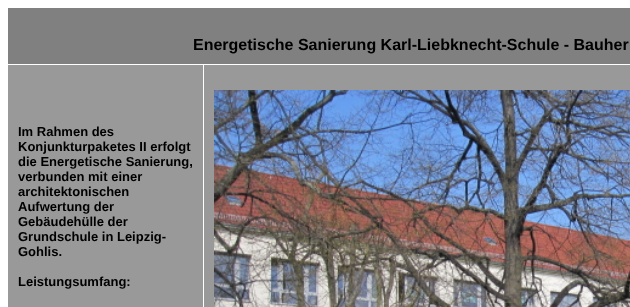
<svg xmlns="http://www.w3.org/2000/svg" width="630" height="307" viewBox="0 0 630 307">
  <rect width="100%" height="100%" fill="#ffffff"/>
  <rect x="8" y="8" width="622" height="56" fill="#808080"/>
  <text x="193" y="50" font-family="Liberation Sans" font-size="16" font-weight="bold" fill="#000000">Energetische Sanierung Karl-Liebknecht-Schule - Bauher</text>
  <rect x="8" y="65" width="195" height="242" fill="#999999"/>
  <text x="18" y="136" font-family="Liberation Sans" font-size="13" font-weight="bold" fill="#000000">Im Rahmen des</text>
  <text x="18" y="151" font-family="Liberation Sans" font-size="13" font-weight="bold" fill="#000000">Konjunkturpaketes II erfolgt</text>
  <text x="18" y="166" font-family="Liberation Sans" font-size="13" font-weight="bold" fill="#000000">die Energetische Sanierung,</text>
  <text x="18" y="181" font-family="Liberation Sans" font-size="13" font-weight="bold" fill="#000000">verbunden mit einer</text>
  <text x="18" y="196" font-family="Liberation Sans" font-size="13" font-weight="bold" fill="#000000">architektonischen</text>
  <text x="18" y="211" font-family="Liberation Sans" font-size="13" font-weight="bold" fill="#000000">Aufwertung der</text>
  <text x="18" y="226" font-family="Liberation Sans" font-size="13" font-weight="bold" fill="#000000">Gebäudehülle der</text>
  <text x="18" y="241" font-family="Liberation Sans" font-size="13" font-weight="bold" fill="#000000">Grundschule in Leipzig-</text>
  <text x="18" y="256" font-family="Liberation Sans" font-size="13" font-weight="bold" fill="#000000">Gohlis.</text>
  <text x="18" y="286" font-family="Liberation Sans" font-size="13" font-weight="bold" fill="#000000">Leistungsumfang:</text>
  <rect x="204" y="65" width="426" height="242" fill="#999999"/>
  <image x="214" y="90" width="416" height="217" href="img1.png"/>
</svg>
